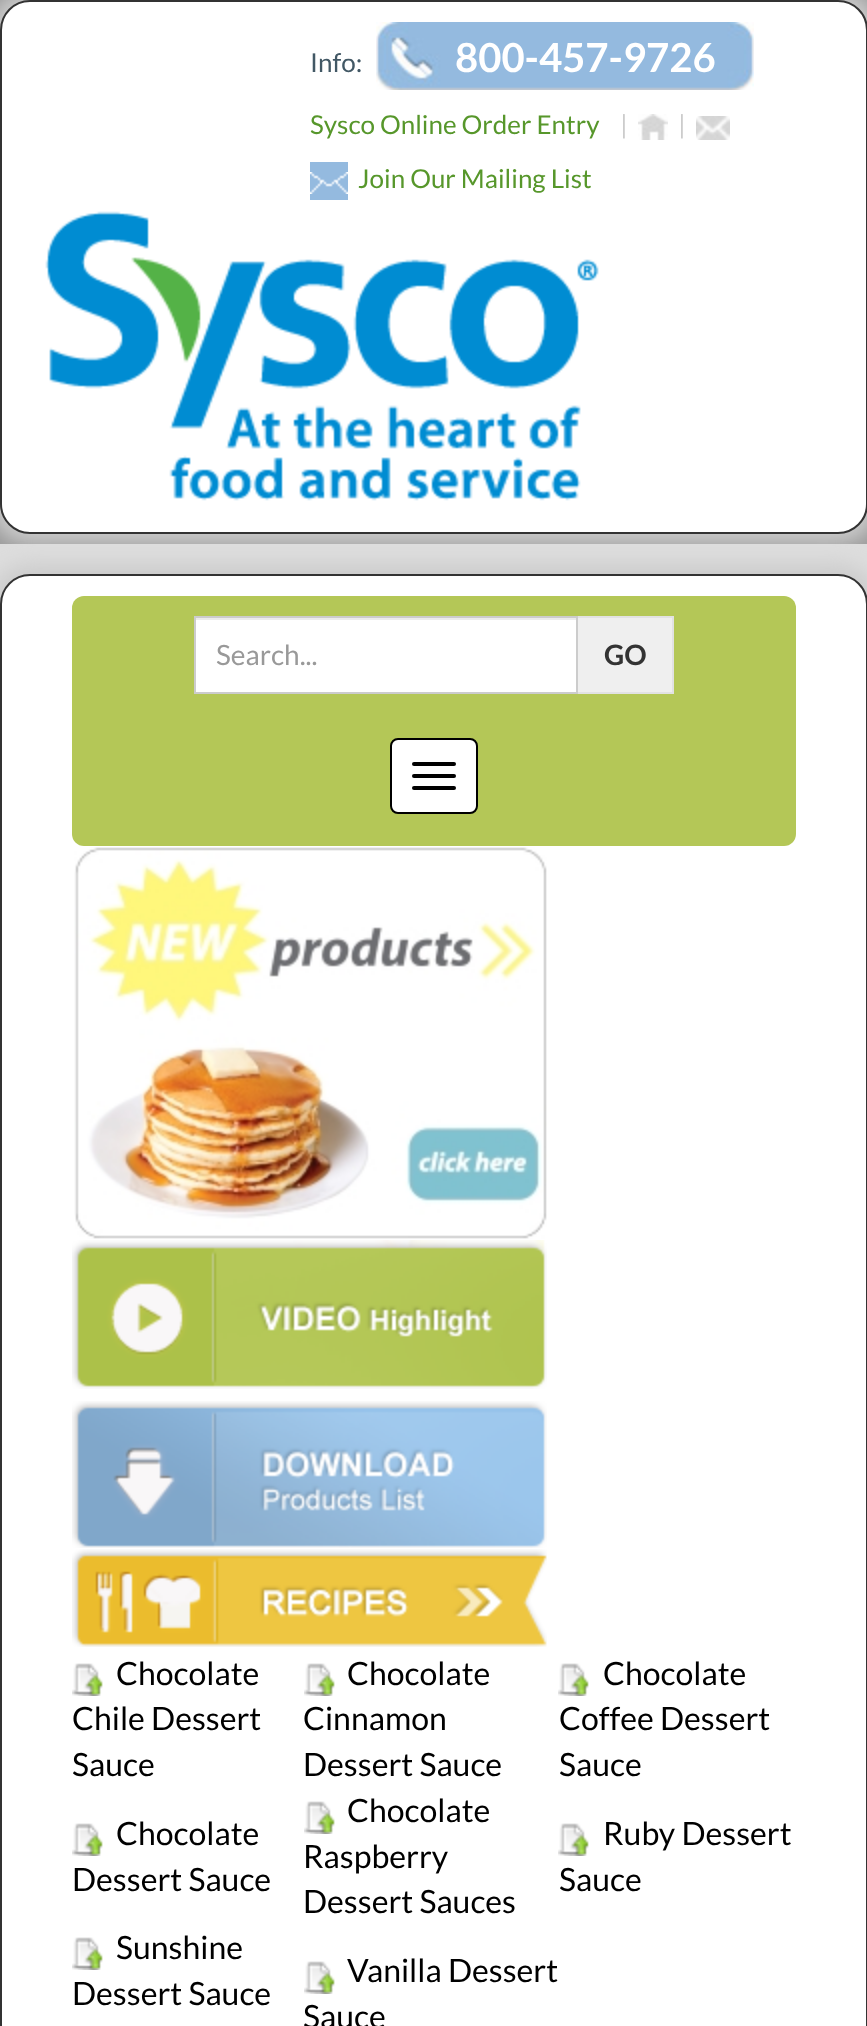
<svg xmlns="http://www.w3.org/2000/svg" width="867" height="2026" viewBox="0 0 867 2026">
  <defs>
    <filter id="blur1" x="-50%" y="-200%" width="200%" height="500%"><feGaussianBlur stdDeviation="10"/></filter>
  </defs>
  <rect width="100%" height="100%" fill="#999999"/>
  <rect x="-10" y="-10" width="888" height="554" rx="40" fill="#cccccc" filter="url(#blur1)"/>
  <rect x="1" y="1" width="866" height="532" rx="29" fill="#ffffff" stroke="#333333" stroke-width="2"/>
  <text x="310" y="72" font-family="Lato" font-size="26" fill="#425865">Info:</text>
  <image x="376" y="22" width="378" height="68" href="img1.png"/>
  <text x="455" y="72" font-family="Lato" font-size="40" font-weight="bold" fill="#ffffff">800-457-9726</text>
  <text x="310" y="134" font-family="Lato" font-size="26" fill="#57972b">Sysco Online Order Entry</text>
  <text x="620" y="134" font-family="Lato" font-size="26" fill="#cccccc">|</text>
  <image x="638" y="114" width="30" height="26" href="img2.png"/>
  <text x="678" y="134" font-family="Lato" font-size="26" fill="#cccccc">|</text>
  <image x="696" y="116" width="34" height="24" href="img3.png"/>
  <rect x="310" y="162" width="38" height="38" fill="#94badf"/>
  <image x="310" y="172" width="38" height="22" href="img4.png"/>
  <text x="358" y="188" font-family="Lato" font-size="26" fill="#57972b">Join Our Mailing List</text>
  <image x="45" y="211" width="554" height="290" href="img5.png"/>
  <rect x="0" y="544" width="867" height="60" fill="#dddddd"/>
  <rect x="-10" y="564" width="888" height="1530" rx="40" fill="#cccccc" filter="url(#blur1)"/>
  <rect x="1" y="575" width="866" height="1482" rx="29" fill="#ffffff" stroke="#333333" stroke-width="2"/>
  <rect x="72" y="596" width="724" height="250" rx="12" fill="#b4c757"/>
  <rect x="196" y="620" width="380" height="72" fill="#ffffff"/>
  <rect x="196" y="618" width="380" height="2" fill="#ececec"/>
  <rect x="195" y="617" width="382" height="76" fill="none" stroke="#cccccc" stroke-width="2"/>
  <text x="216" y="665" font-family="Lato" font-size="28" fill="#999999">Search...</text>
  <rect x="578" y="618" width="94" height="74" fill="#efefef"/>
  <rect x="578" y="616" width="96" height="2" fill="#e2e2e2"/>
  <rect x="672" y="616" width="2" height="78" fill="#e2e2e2"/>
  <rect x="578" y="692" width="96" height="2" fill="#e2e2e2"/>
  <text x="604" y="665" font-family="Lato" font-size="28" font-weight="bold" fill="#333333">GO</text>
  <rect x="391" y="739" width="86" height="74" rx="7" fill="#ffffff" stroke="#000000" stroke-width="2"/>
  <rect x="412" y="762" width="44" height="4" rx="2" fill="#000000"/>
  <rect x="412" y="774" width="44" height="4" rx="2" fill="#000000"/>
  <rect x="412" y="786" width="44" height="4" rx="2" fill="#000000"/>
  <image x="74" y="847" width="473" height="392" href="img6.png"/>
  <image x="72" y="1240" width="475" height="149" href="img7.png"/>
  <image x="72" y="1401" width="475" height="147" href="img8.png"/>
  <image x="72" y="1549" width="475" height="98" href="img9.png"/>
  <image x="72" y="1663" width="31" height="33" href="img10.png"/>
  <text x="116" y="1685" font-family="Lato" font-size="32" fill="#000000">Chocolate</text>
  <text x="72" y="1730" font-family="Lato" font-size="32" fill="#000000">Chile Dessert</text>
  <text x="72" y="1776" font-family="Lato" font-size="32" fill="#000000">Sauce</text>
  <image x="304" y="1663" width="31" height="33" href="img10.png"/>
  <text x="347" y="1685" font-family="Lato" font-size="32" fill="#000000">Chocolate</text>
  <text x="303" y="1730" font-family="Lato" font-size="32" fill="#000000">Cinnamon</text>
  <text x="303" y="1776" font-family="Lato" font-size="32" fill="#000000">Dessert Sauce</text>
  <image x="558" y="1663" width="31" height="33" href="img10.png"/>
  <text x="603" y="1685" font-family="Lato" font-size="32" fill="#000000">Chocolate</text>
  <text x="559" y="1730" font-family="Lato" font-size="32" fill="#000000">Coffee Dessert</text>
  <text x="559" y="1776" font-family="Lato" font-size="32" fill="#000000">Sauce</text>
  <image x="72" y="1823" width="31" height="33" href="img10.png"/>
  <text x="116" y="1845" font-family="Lato" font-size="32" fill="#000000">Chocolate</text>
  <text x="72" y="1891" font-family="Lato" font-size="32" fill="#000000">Dessert Sauce</text>
  <image x="304" y="1801" width="31" height="33" href="img10.png"/>
  <text x="347" y="1822" font-family="Lato" font-size="32" fill="#000000">Chocolate</text>
  <text x="303" y="1868" font-family="Lato" font-size="32" fill="#000000">Raspberry</text>
  <text x="303" y="1913" font-family="Lato" font-size="32" fill="#000000">Dessert Sauces</text>
  <image x="558" y="1823" width="31" height="33" href="img10.png"/>
  <text x="603" y="1845" font-family="Lato" font-size="32" fill="#000000">Ruby Dessert</text>
  <text x="559" y="1891" font-family="Lato" font-size="32" fill="#000000">Sauce</text>
  <image x="72" y="1937" width="31" height="33" href="img10.png"/>
  <text x="116" y="1959" font-family="Lato" font-size="32" fill="#000000">Sunshine</text>
  <text x="72" y="2005" font-family="Lato" font-size="32" fill="#000000">Dessert Sauce</text>
  <image x="304" y="1961" width="31" height="33" href="img10.png"/>
  <text x="347" y="1982" font-family="Lato" font-size="32" fill="#000000">Vanilla Dessert</text>
  <text x="303" y="2028" font-family="Lato" font-size="32" fill="#000000">Sauce</text>
</svg>
